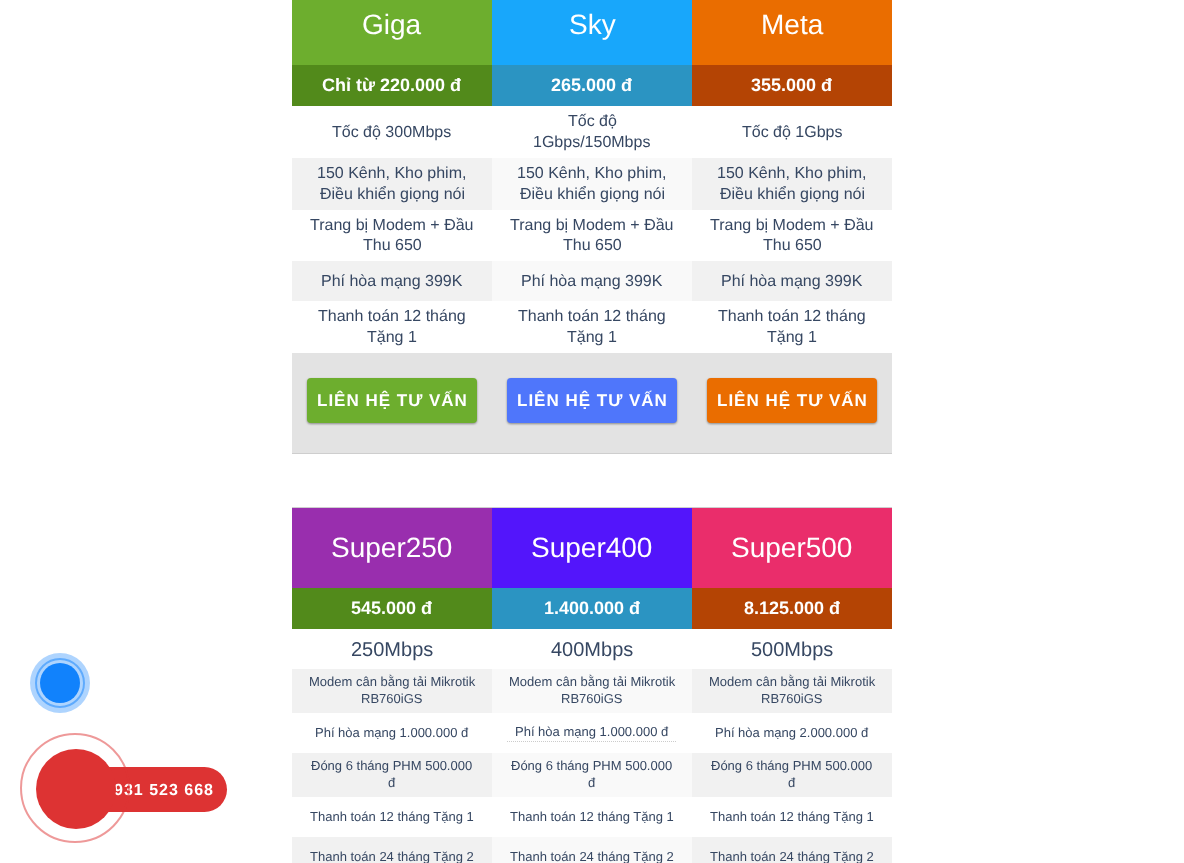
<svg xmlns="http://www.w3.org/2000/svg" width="1184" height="863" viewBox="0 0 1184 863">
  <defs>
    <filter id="blur1" x="-50%" y="-200%" width="200%" height="500%"><feGaussianBlur stdDeviation="1"/></filter>
  </defs>
  <rect width="100%" height="100%" fill="#ffffff"/>
  <circle cx="60" cy="683" r="24" fill="none" stroke="#88c1fe" stroke-width="2"/>
  <circle cx="60" cy="683" r="30" fill="#1182fc" fill-opacity="0.34"/>
  <circle cx="60" cy="683" r="20" fill="#1182fc"/>
  <rect x="292" y="453" width="600" height="1" fill="#cecece"/>
  <rect x="292" y="0" width="200" height="65" fill="#6dae2e"/>
  <text x="362" y="34" font-family="Liberation Sans" font-size="28" fill="#ffffff">Giga</text>
  <rect x="292" y="65" width="200" height="41" fill="#528a1b"/>
  <text x="322" y="91" font-family="Liberation Sans" font-size="18" font-weight="bold" fill="#ffffff">Chỉ từ 220.000 đ</text>
  <text x="332" y="137" font-family="Liberation Sans" font-size="16" fill="#364762">Tốc độ 300Mbps</text>
  <rect x="292" y="158" width="200" height="52" fill="#f1f1f1"/>
  <text x="317" y="178" font-family="Liberation Sans" font-size="16" fill="#364762">150 Kênh, Kho phim,</text>
  <text x="320" y="199" font-family="Liberation Sans" font-size="16" fill="#364762">Điều khiển giọng nói</text>
  <text x="310" y="230" font-family="Liberation Sans" font-size="16" fill="#364762">Trang bị Modem + Đầu</text>
  <text x="363" y="250" font-family="Liberation Sans" font-size="16" fill="#364762">Thu 650</text>
  <rect x="292" y="261" width="200" height="40" fill="#f1f1f1"/>
  <text x="321" y="286" font-family="Liberation Sans" font-size="16" fill="#364762">Phí hòa mạng 399K</text>
  <text x="318" y="321" font-family="Liberation Sans" font-size="16" fill="#364762">Thanh toán 12 tháng</text>
  <text x="367" y="342" font-family="Liberation Sans" font-size="16" fill="#364762">Tặng 1</text>
  <rect x="292" y="353" width="600" height="100" fill="#e3e3e3"/>
  <rect x="307" y="379" width="170" height="45" rx="4" fill="#000000" fill-opacity="0.4" filter="url(#blur1)"/>
  <rect x="307" y="378" width="170" height="45" rx="4" fill="#6dae2e"/>
  <text x="317" y="406" font-family="Liberation Sans" font-size="17" font-weight="bold" letter-spacing="1" fill="#ffffff">LIÊN HỆ TƯ VẤN</text>
  <rect x="492" y="0" width="200" height="65" fill="#18a7fb"/>
  <text x="569" y="34" font-family="Liberation Sans" font-size="28" fill="#ffffff">Sky</text>
  <rect x="492" y="65" width="200" height="41" fill="#2b94c2"/>
  <text x="551" y="91" font-family="Liberation Sans" font-size="18" font-weight="bold" fill="#ffffff">265.000 đ</text>
  <text x="568" y="126" font-family="Liberation Sans" font-size="16" fill="#364762">Tốc độ</text>
  <text x="533" y="147" font-family="Liberation Sans" font-size="16" fill="#364762">1Gbps/150Mbps</text>
  <rect x="492" y="158" width="200" height="52" fill="#f9f9f9"/>
  <text x="517" y="178" font-family="Liberation Sans" font-size="16" fill="#364762">150 Kênh, Kho phim,</text>
  <text x="520" y="199" font-family="Liberation Sans" font-size="16" fill="#364762">Điều khiển giọng nói</text>
  <text x="510" y="230" font-family="Liberation Sans" font-size="16" fill="#364762">Trang bị Modem + Đầu</text>
  <text x="563" y="250" font-family="Liberation Sans" font-size="16" fill="#364762">Thu 650</text>
  <rect x="492" y="261" width="200" height="40" fill="#f9f9f9"/>
  <text x="521" y="286" font-family="Liberation Sans" font-size="16" fill="#364762">Phí hòa mạng 399K</text>
  <text x="518" y="321" font-family="Liberation Sans" font-size="16" fill="#364762">Thanh toán 12 tháng</text>
  <text x="567" y="342" font-family="Liberation Sans" font-size="16" fill="#364762">Tặng 1</text>
  <rect x="507" y="379" width="170" height="45" rx="4" fill="#000000" fill-opacity="0.4" filter="url(#blur1)"/>
  <rect x="507" y="378" width="170" height="45" rx="4" fill="#4f76fb"/>
  <text x="517" y="406" font-family="Liberation Sans" font-size="17" font-weight="bold" letter-spacing="1" fill="#ffffff">LIÊN HỆ TƯ VẤN</text>
  <rect x="692" y="0" width="200" height="65" fill="#ea6d00"/>
  <text x="761" y="34" font-family="Liberation Sans" font-size="28" fill="#ffffff">Meta</text>
  <rect x="692" y="65" width="200" height="41" fill="#b44404"/>
  <text x="751" y="91" font-family="Liberation Sans" font-size="18" font-weight="bold" fill="#ffffff">355.000 đ</text>
  <text x="742" y="137" font-family="Liberation Sans" font-size="16" fill="#364762">Tốc độ 1Gbps</text>
  <rect x="692" y="158" width="200" height="52" fill="#f1f1f1"/>
  <text x="717" y="178" font-family="Liberation Sans" font-size="16" fill="#364762">150 Kênh, Kho phim,</text>
  <text x="720" y="199" font-family="Liberation Sans" font-size="16" fill="#364762">Điều khiển giọng nói</text>
  <text x="710" y="230" font-family="Liberation Sans" font-size="16" fill="#364762">Trang bị Modem + Đầu</text>
  <text x="763" y="250" font-family="Liberation Sans" font-size="16" fill="#364762">Thu 650</text>
  <rect x="692" y="261" width="200" height="40" fill="#f1f1f1"/>
  <text x="721" y="286" font-family="Liberation Sans" font-size="16" fill="#364762">Phí hòa mạng 399K</text>
  <text x="718" y="321" font-family="Liberation Sans" font-size="16" fill="#364762">Thanh toán 12 tháng</text>
  <text x="767" y="342" font-family="Liberation Sans" font-size="16" fill="#364762">Tặng 1</text>
  <rect x="707" y="379" width="170" height="45" rx="4" fill="#000000" fill-opacity="0.4" filter="url(#blur1)"/>
  <rect x="707" y="378" width="170" height="45" rx="4" fill="#ea6d00"/>
  <text x="717" y="406" font-family="Liberation Sans" font-size="17" font-weight="bold" letter-spacing="1" fill="#ffffff">LIÊN HỆ TƯ VẤN</text>
  <rect x="292" y="507" width="600" height="1" fill="#cecece"/>
  <rect x="292" y="508" width="200" height="80" fill="#992eae"/>
  <text x="331" y="557" font-family="Liberation Sans" font-size="28" fill="#ffffff">Super250</text>
  <rect x="292" y="588" width="200" height="41" fill="#528a1b"/>
  <text x="351" y="614" font-family="Liberation Sans" font-size="18" font-weight="bold" fill="#ffffff">545.000 đ</text>
  <text x="351" y="656" font-family="Liberation Sans" font-size="20" fill="#364762">250Mbps</text>
  <rect x="292" y="669" width="200" height="44" fill="#f1f1f1"/>
  <text x="309" y="686" font-family="Liberation Sans" font-size="13" fill="#364762">Modem cân bằng tải Mikrotik</text>
  <text x="361" y="703" font-family="Liberation Sans" font-size="13" fill="#364762">RB760iGS</text>
  <text x="315" y="737" font-family="Liberation Sans" font-size="13" fill="#364762">Phí hòa mạng 1.000.000 đ</text>
  <rect x="292" y="753" width="200" height="44" fill="#f1f1f1"/>
  <text x="311" y="770" font-family="Liberation Sans" font-size="13" fill="#364762">Đóng 6 tháng PHM 500.000</text>
  <text x="388" y="787" font-family="Liberation Sans" font-size="13" fill="#364762">đ</text>
  <text x="310" y="821" font-family="Liberation Sans" font-size="13" fill="#364762">Thanh toán 12 tháng Tặng 1</text>
  <rect x="292" y="837" width="200" height="26" fill="#f1f1f1"/>
  <text x="310" y="861" font-family="Liberation Sans" font-size="13" fill="#364762">Thanh toán 24 tháng Tặng 2</text>
  <rect x="492" y="508" width="200" height="80" fill="#5315fb"/>
  <text x="531" y="557" font-family="Liberation Sans" font-size="28" fill="#ffffff">Super400</text>
  <rect x="492" y="588" width="200" height="41" fill="#2b94c2"/>
  <text x="544" y="614" font-family="Liberation Sans" font-size="18" font-weight="bold" fill="#ffffff">1.400.000 đ</text>
  <text x="551" y="656" font-family="Liberation Sans" font-size="20" fill="#364762">400Mbps</text>
  <rect x="492" y="669" width="200" height="44" fill="#f9f9f9"/>
  <text x="509" y="686" font-family="Liberation Sans" font-size="13" fill="#364762">Modem cân bằng tải Mikrotik</text>
  <text x="561" y="703" font-family="Liberation Sans" font-size="13" fill="#364762">RB760iGS</text>
  <text x="515" y="736" font-family="Liberation Sans" font-size="13" fill="#364762">Phí hòa mạng 1.000.000 đ</text>
  <path d="M507 741.5H677" fill="none" stroke="#cccccc" stroke-dasharray="1 1"/>
  <rect x="492" y="753" width="200" height="44" fill="#f9f9f9"/>
  <text x="511" y="770" font-family="Liberation Sans" font-size="13" fill="#364762">Đóng 6 tháng PHM 500.000</text>
  <text x="588" y="787" font-family="Liberation Sans" font-size="13" fill="#364762">đ</text>
  <text x="510" y="821" font-family="Liberation Sans" font-size="13" fill="#364762">Thanh toán 12 tháng Tặng 1</text>
  <rect x="492" y="837" width="200" height="26" fill="#f9f9f9"/>
  <text x="510" y="861" font-family="Liberation Sans" font-size="13" fill="#364762">Thanh toán 24 tháng Tặng 2</text>
  <rect x="692" y="508" width="200" height="80" fill="#ea2d6b"/>
  <text x="731" y="557" font-family="Liberation Sans" font-size="28" fill="#ffffff">Super500</text>
  <rect x="692" y="588" width="200" height="41" fill="#b44404"/>
  <text x="744" y="614" font-family="Liberation Sans" font-size="18" font-weight="bold" fill="#ffffff">8.125.000 đ</text>
  <text x="751" y="656" font-family="Liberation Sans" font-size="20" fill="#364762">500Mbps</text>
  <rect x="692" y="669" width="200" height="44" fill="#f1f1f1"/>
  <text x="709" y="686" font-family="Liberation Sans" font-size="13" fill="#364762">Modem cân bằng tải Mikrotik</text>
  <text x="761" y="703" font-family="Liberation Sans" font-size="13" fill="#364762">RB760iGS</text>
  <text x="715" y="737" font-family="Liberation Sans" font-size="13" fill="#364762">Phí hòa mạng 2.000.000 đ</text>
  <rect x="692" y="753" width="200" height="44" fill="#f1f1f1"/>
  <text x="711" y="770" font-family="Liberation Sans" font-size="13" fill="#364762">Đóng 6 tháng PHM 500.000</text>
  <text x="788" y="787" font-family="Liberation Sans" font-size="13" fill="#364762">đ</text>
  <text x="710" y="821" font-family="Liberation Sans" font-size="13" fill="#364762">Thanh toán 12 tháng Tặng 1</text>
  <rect x="692" y="837" width="200" height="26" fill="#f1f1f1"/>
  <text x="710" y="861" font-family="Liberation Sans" font-size="13" fill="#364762">Thanh toán 24 tháng Tặng 2</text>
  <rect x="62" y="767" width="165" height="45" rx="22.5" fill="#dd3333"/>
  <text x="114" y="795" font-family="Liberation Sans" font-size="16" font-weight="bold" letter-spacing="1" fill="#ffffff">931 523 668</text>
  <circle cx="75" cy="788" r="54" fill="none" stroke="#dd3333" stroke-opacity="0.5" stroke-width="2"/>
  <circle cx="76" cy="789" r="40" fill="#dd3333"/>
</svg>
